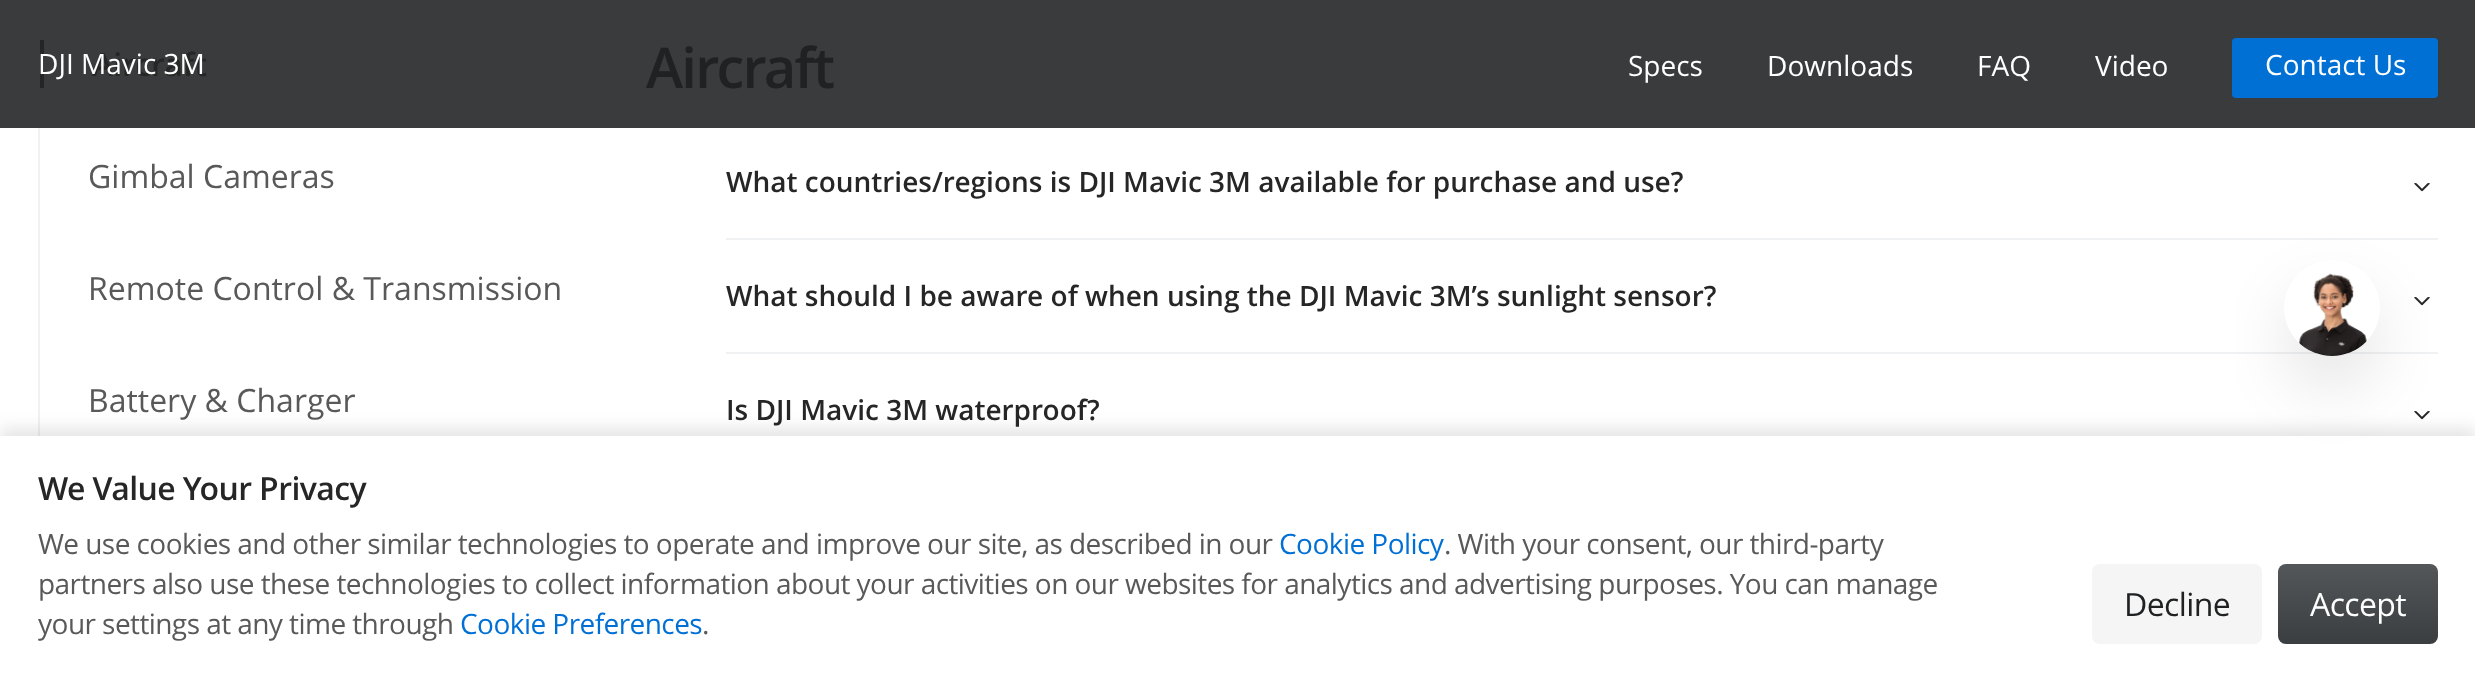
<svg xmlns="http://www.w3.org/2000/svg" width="2475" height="675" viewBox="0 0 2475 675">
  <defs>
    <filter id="blur1" x="-50%" y="-200%" width="200%" height="500%"><feGaussianBlur stdDeviation="8"/></filter>
    <filter id="blur2" x="-50%" y="-200%" width="200%" height="500%"><feGaussianBlur stdDeviation="32"/></filter>
    <linearGradient id="g1" gradientUnits="userSpaceOnUse" x1="2358" y1="564" x2="2358" y2="644"><stop offset="0" stop-color="#535759"/><stop offset="1" stop-color="#3b3e40"/></linearGradient>
  </defs>
  <rect width="100%" height="100%" fill="#ffffff"/>
  <rect x="0" y="0" width="2475" height="128" fill="#393b3c"/>
  <rect x="38" y="128" width="2" height="308" fill="#f0f1f2"/>
  <rect x="40" y="40" width="4" height="48" fill="#232526"/>
  <text x="92" y="76" font-family="Open Sans" font-size="32" font-weight="600" fill="#262626">Aircraft</text>
  <text x="88" y="188" font-family="Open Sans" font-size="32" fill="#595959">Gimbal Cameras</text>
  <text x="88" y="300" font-family="Open Sans" font-size="32" fill="#595959">Remote Control &amp; Transmission</text>
  <text x="88" y="412" font-family="Open Sans" font-size="32" fill="#595959">Battery &amp; Charger</text>
  <text x="646" y="88" font-family="Open Sans" font-size="56" font-weight="600" letter-spacing="-1.75" fill="#202122">Aircraft</text>
  <rect x="726" y="238" width="1712" height="2" fill="#f0f1f2"/>
  <text x="726" y="192" font-family="Open Sans" font-size="28" font-weight="600" fill="#262626">What countries/regions is DJI Mavic 3M available for purchase and use?</text>
  <image x="2414" y="183" width="16" height="9" href="img1.png"/>
  <rect x="726" y="352" width="1712" height="2" fill="#f0f1f2"/>
  <text x="726" y="306" font-family="Open Sans" font-size="28" font-weight="600" fill="#262626">What should I be aware of when using the DJI Mavic 3M’s sunlight sensor?</text>
  <image x="2414" y="297" width="16" height="9" href="img1.png"/>
  <text x="726" y="420" font-family="Open Sans" font-size="28" font-weight="600" fill="#262626">Is DJI Mavic 3M waterproof?</text>
  <image x="2414" y="411" width="16" height="9" href="img1.png"/>
  <text x="38" y="74" font-family="Open Sans" font-size="28" fill="#ffffff">DJI Mavic 3M</text>
  <text x="1628" y="76" font-family="Open Sans" font-size="28" fill="#ffffff">Specs</text>
  <text x="1767" y="76" font-family="Open Sans" font-size="28" fill="#ffffff">Downloads</text>
  <text x="1977" y="76" font-family="Open Sans" font-size="28" fill="#ffffff">FAQ</text>
  <text x="2095" y="76" font-family="Open Sans" font-size="28" fill="#ffffff">Video</text>
  <rect x="2232" y="38" width="206" height="60" rx="4" fill="#0070d5"/>
  <text x="2265" y="75" font-family="Open Sans" font-size="28" fill="#ffffff">Contact Us</text>
  <rect x="0" y="428" width="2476" height="240" fill="#000000" fill-opacity="0.1" filter="url(#blur1)"/>
  <rect x="0" y="436" width="2475" height="239" fill="#ffffff"/>
  <rect x="2284" y="292" width="96" height="96" rx="48" fill="#000000" fill-opacity="0.1" filter="url(#blur2)"/>
  <circle cx="2332" cy="308" r="48" fill="#ffffff"/>
  <image x="2299" y="273" width="68" height="83" href="img2.png"/>
  <text x="38" y="500" font-family="Open Sans" font-size="32" font-weight="600" letter-spacing="-0.6" fill="#262626">We Value Your Privacy</text>
  <text x="38" y="554" font-family="Open Sans" font-size="28" letter-spacing="-0.56" fill="#595959">We use cookies and other similar technologies to operate and improve our site, as described in our</text>
  <text x="1279" y="554" font-family="Open Sans" font-size="28" letter-spacing="-0.56" fill="#0070d5">Cookie Policy</text>
  <text x="1444" y="554" font-family="Open Sans" font-size="28" letter-spacing="-0.56" fill="#595959">. With your consent, our third-party</text>
  <text x="38" y="594" font-family="Open Sans" font-size="28" letter-spacing="-0.56" fill="#595959">partners also use these technologies to collect information about your activities on our websites for analytics and advertising purposes. You can manage</text>
  <text x="38" y="634" font-family="Open Sans" font-size="28" letter-spacing="-0.56" fill="#595959">your settings at any time through</text>
  <text x="460" y="634" font-family="Open Sans" font-size="28" letter-spacing="-0.56" fill="#0070d5">Cookie Preferences</text>
  <text x="702" y="634" font-family="Open Sans" font-size="28" letter-spacing="-0.56" fill="#595959">.</text>
  <rect x="2092" y="564" width="170" height="80" rx="8" fill="#f5f5f5"/>
  <text x="2124" y="616" font-family="Open Sans" font-size="32" letter-spacing="-0.6" fill="#202122">Decline</text>
  <rect x="2278" y="564" width="160" height="80" rx="8" fill="url(#g1)"/>
  <text x="2310" y="616" font-family="Open Sans" font-size="32" letter-spacing="-0.6" fill="#ffffff">Accept</text>
</svg>
